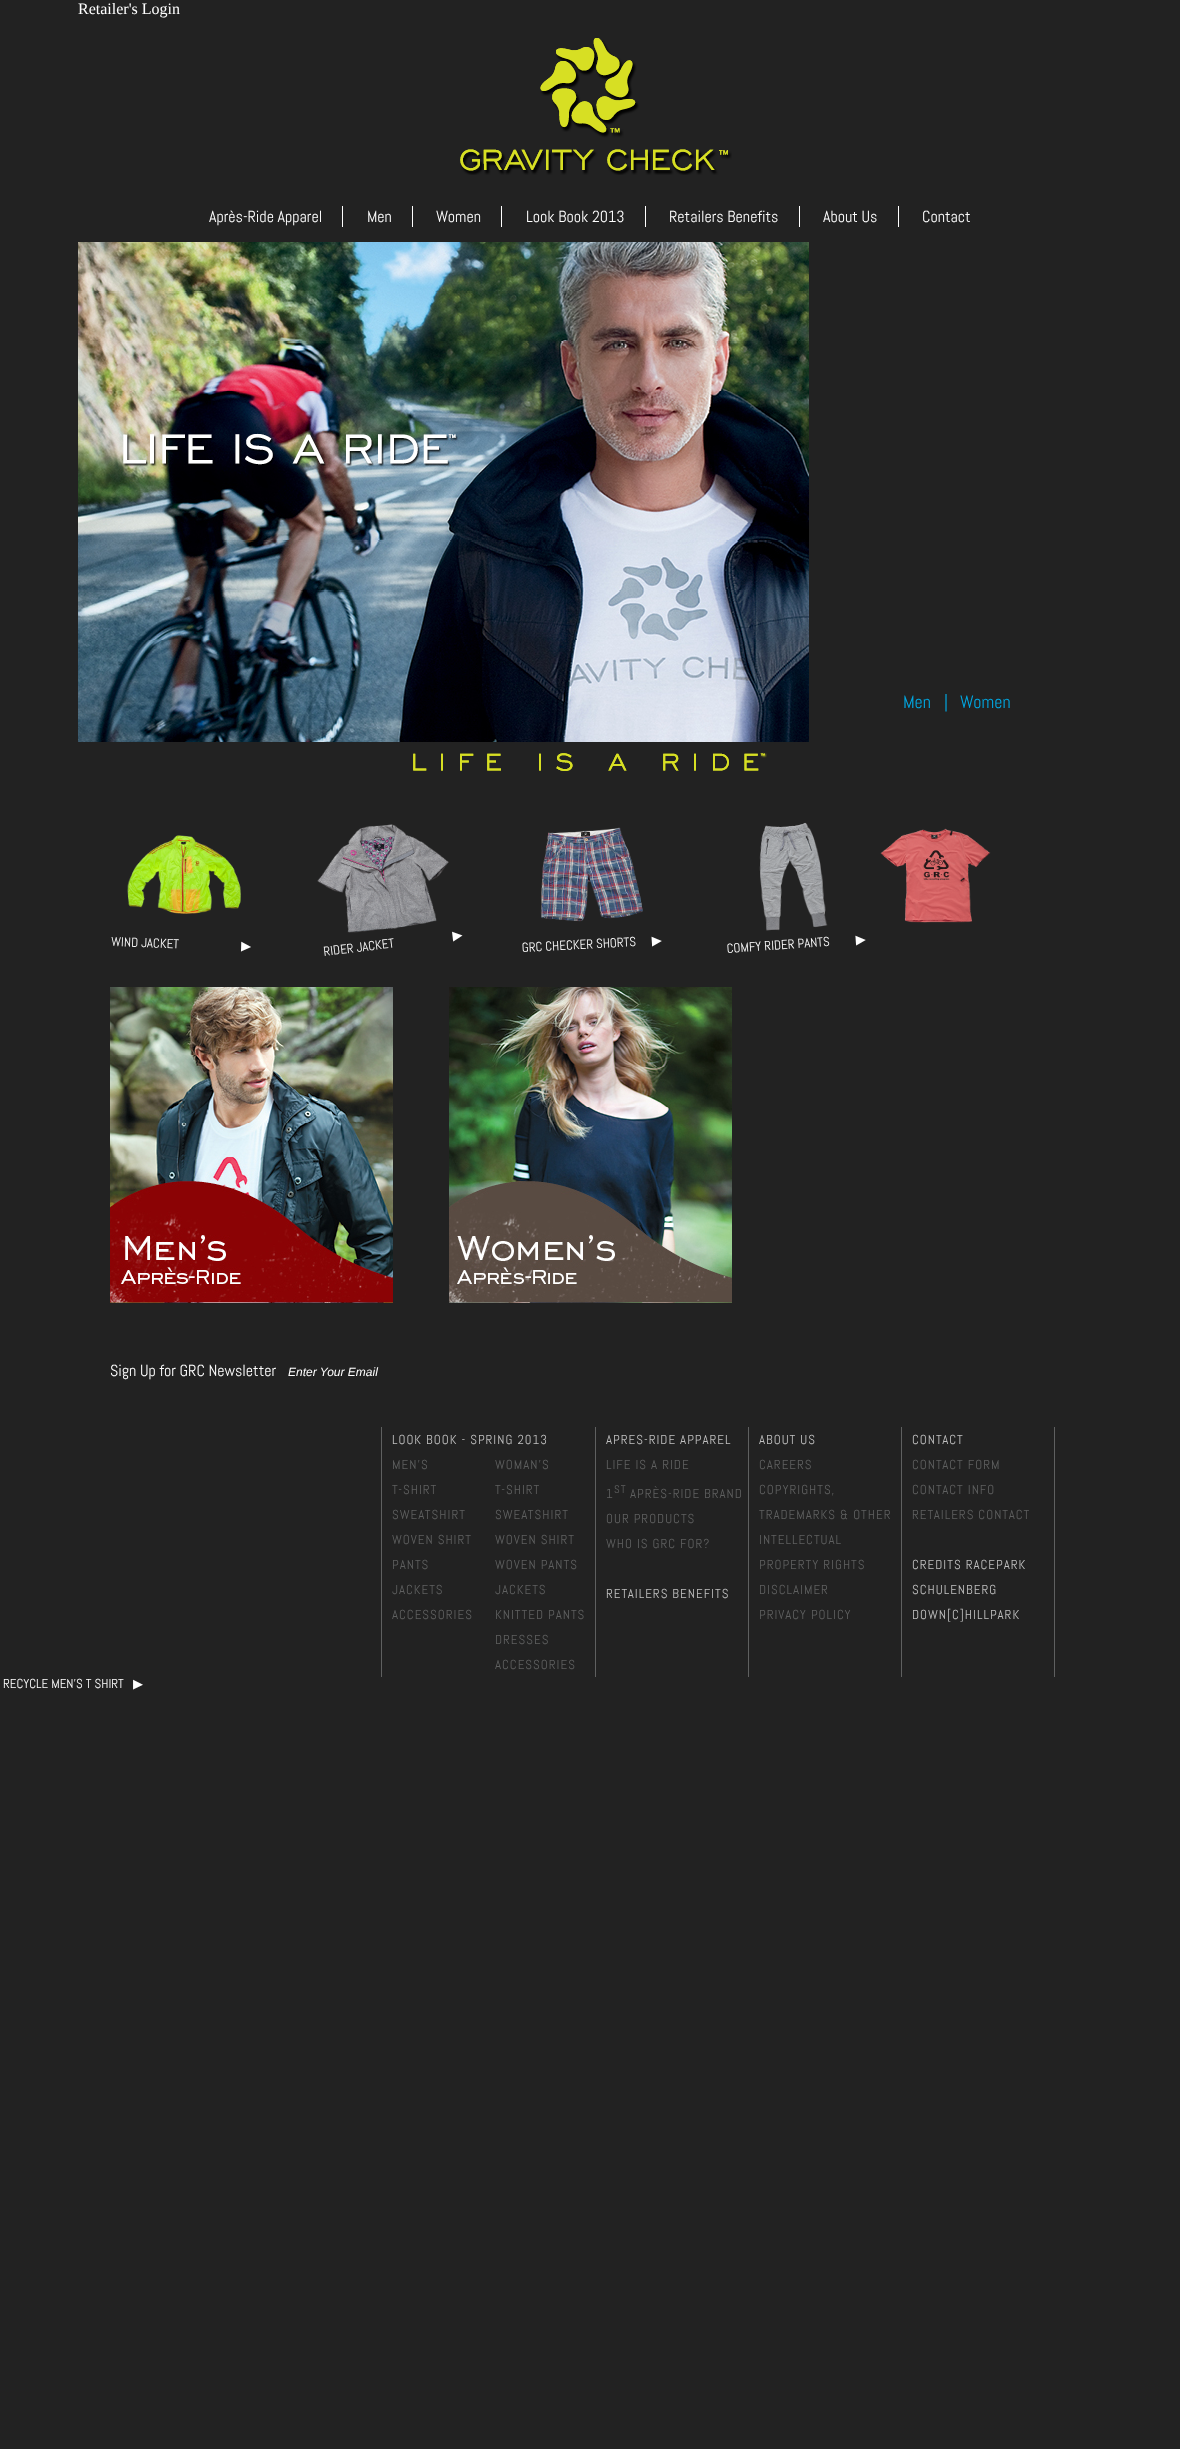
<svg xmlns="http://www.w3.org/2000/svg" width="1180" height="2449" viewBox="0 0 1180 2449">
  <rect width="100%" height="100%" fill="#222222"/>
  <text x="78" y="14" font-family="Liberation Serif" font-size="16" fill="#ffffff">Retailer's Login</text>
  <image x="460" y="38" width="272" height="137" href="img1.png"/>
  <text x="209" y="222" font-family="Abel" font-size="16" fill="#ffffff">Après-Ride Apparel</text>
  <rect x="342" y="206" width="1" height="21" fill="#ffffff"/>
  <text x="367" y="222" font-family="Abel" font-size="16" fill="#ffffff">Men</text>
  <rect x="412" y="206" width="1" height="21" fill="#ffffff"/>
  <text x="436" y="222" font-family="Abel" font-size="16" fill="#ffffff">Women</text>
  <rect x="501" y="206" width="1" height="21" fill="#ffffff"/>
  <text x="526" y="222" font-family="Abel" font-size="16" fill="#ffffff">Look Book 2013</text>
  <rect x="645" y="206" width="1" height="21" fill="#ffffff"/>
  <text x="669" y="222" font-family="Abel" font-size="16" fill="#ffffff">Retailers Benefits</text>
  <rect x="799" y="206" width="1" height="21" fill="#ffffff"/>
  <text x="823" y="222" font-family="Abel" font-size="16" fill="#ffffff">About Us</text>
  <rect x="898" y="206" width="1" height="21" fill="#ffffff"/>
  <text x="922" y="222" font-family="Abel" font-size="16" fill="#ffffff">Contact</text>
  <image x="78" y="242" width="731" height="500" href="img2.png"/>
  <text x="903" y="708" font-family="Abel" font-size="18" fill="#00a8e3">Men</text>
  <text x="944" y="708" font-family="Abel" font-size="18" fill="#00a8e3">|</text>
  <text x="960" y="708" font-family="Abel" font-size="18" fill="#00a8e3">Women</text>
  <image x="413" y="752" width="354" height="19" href="img3.png"/>
  <image x="880" y="828" width="111" height="95" href="img4.png"/>
  <image x="127" y="835" width="114" height="79" href="img5.png"/>
  <text x="111" y="946" transform="rotate(2 111 946)" font-family="Abel" font-size="13" fill="#ffffff">WIND JACKET</text>
  <text x="241" y="950" transform="rotate(2 241 950)" font-family="DejaVu Sans" font-size="13" fill="#ffffff">▶</text>
  <image x="317" y="824" width="132" height="109" href="img6.png"/>
  <text x="453" y="940" transform="rotate(-7 453 940)" font-family="DejaVu Sans" font-size="13" fill="#ffffff">▶</text>
  <text x="324" y="956" transform="rotate(-7 324 956)" font-family="Abel" font-size="13" fill="#ffffff">RIDER JACKET</text>
  <image x="540" y="827" width="103" height="95" href="img7.png"/>
  <text x="522" y="952" transform="rotate(-3 522 952)" font-family="Abel" font-size="13" fill="#ffffff">GRC CHECKER SHORTS</text>
  <text x="652" y="945" transform="rotate(-3 652 945)" font-family="DejaVu Sans" font-size="13" fill="#ffffff">▶</text>
  <image x="759" y="822" width="69" height="109" href="img8.png"/>
  <text x="727" y="953" transform="rotate(-4 727 953)" font-family="Abel" font-size="13" fill="#ffffff">COMFY RIDER PANTS</text>
  <text x="856" y="944" transform="rotate(-4 856 944)" font-family="DejaVu Sans" font-size="13" fill="#ffffff">▶</text>
  <text x="3" y="1688" font-family="Abel" font-size="13" fill="#ffffff">RECYCLE MEN’S T SHIRT</text>
  <text x="133" y="1688" font-family="DejaVu Sans" font-size="13" fill="#ffffff">▶</text>
  <image x="110" y="987" width="283" height="316" href="img9.png"/>
  <image x="449" y="987" width="283" height="316" href="img10.png"/>
  <text x="110" y="1376" font-family="Abel" font-size="16" fill="#ffffff">Sign Up for GRC Newsletter</text>
  <text x="288" y="1376" font-family="Liberation Sans" font-size="12" font-style="italic" fill="#ffffff">Enter Your Email</text>
  <rect x="595" y="1427" width="1" height="250" fill="#5f6060"/>
  <rect x="381" y="1427" width="1" height="250" fill="#5f6060"/>
  <text x="392" y="1444" font-family="Abel" font-size="13" letter-spacing="1" fill="#c0c0c0">LOOK BOOK - SPRING 2013</text>
  <text x="392" y="1469" font-family="Abel" font-size="13" letter-spacing="1" fill="#5f6060">MEN'S</text>
  <text x="392" y="1494" font-family="Abel" font-size="13" letter-spacing="1" fill="#5f6060">T-SHIRT</text>
  <text x="392" y="1519" font-family="Abel" font-size="13" letter-spacing="1" fill="#5f6060">SWEATSHIRT</text>
  <text x="392" y="1544" font-family="Abel" font-size="13" letter-spacing="1" fill="#5f6060">WOVEN SHIRT</text>
  <text x="392" y="1569" font-family="Abel" font-size="13" letter-spacing="1" fill="#5f6060">PANTS</text>
  <text x="392" y="1594" font-family="Abel" font-size="13" letter-spacing="1" fill="#5f6060">JACKETS</text>
  <text x="392" y="1619" font-family="Abel" font-size="13" letter-spacing="1" fill="#5f6060">ACCESSORIES</text>
  <text x="495" y="1469" font-family="Abel" font-size="13" letter-spacing="1" fill="#5f6060">WOMAN'S</text>
  <text x="495" y="1494" font-family="Abel" font-size="13" letter-spacing="1" fill="#5f6060">T-SHIRT</text>
  <text x="495" y="1519" font-family="Abel" font-size="13" letter-spacing="1" fill="#5f6060">SWEATSHIRT</text>
  <text x="495" y="1544" font-family="Abel" font-size="13" letter-spacing="1" fill="#5f6060">WOVEN SHIRT</text>
  <text x="495" y="1569" font-family="Abel" font-size="13" letter-spacing="1" fill="#5f6060">WOVEN PANTS</text>
  <text x="495" y="1594" font-family="Abel" font-size="13" letter-spacing="1" fill="#5f6060">JACKETS</text>
  <text x="495" y="1619" font-family="Abel" font-size="13" letter-spacing="1" fill="#5f6060">KNITTED PANTS</text>
  <text x="495" y="1644" font-family="Abel" font-size="13" letter-spacing="1" fill="#5f6060">DRESSES</text>
  <text x="495" y="1669" font-family="Abel" font-size="13" letter-spacing="1" fill="#5f6060">ACCESSORIES</text>
  <rect x="748" y="1427" width="1" height="250" fill="#5f6060"/>
  <text x="606" y="1444" font-family="Abel" font-size="13" letter-spacing="1" fill="#c0c0c0">APRES-RIDE APPAREL</text>
  <text x="606" y="1469" font-family="Abel" font-size="13" letter-spacing="1" fill="#5f6060">LIFE IS A RIDE</text>
  <text x="606" y="1498" font-family="Abel" font-size="13" letter-spacing="1" fill="#5f6060">1</text>
  <text x="614" y="1493" font-family="Abel" font-size="11" letter-spacing="1" fill="#5f6060">ST</text>
  <text x="630" y="1498" font-family="Abel" font-size="13" letter-spacing="1" fill="#5f6060">APRÈS-RIDE BRAND</text>
  <text x="606" y="1523" font-family="Abel" font-size="13" letter-spacing="1" fill="#5f6060">OUR PRODUCTS</text>
  <text x="606" y="1548" font-family="Abel" font-size="13" letter-spacing="1" fill="#5f6060">WHO IS GRC FOR?</text>
  <text x="606" y="1598" font-family="Abel" font-size="13" letter-spacing="1" fill="#c0c0c0">RETAILERS BENEFITS</text>
  <rect x="901" y="1427" width="1" height="250" fill="#5f6060"/>
  <text x="759" y="1444" font-family="Abel" font-size="13" letter-spacing="1" fill="#c0c0c0">ABOUT US</text>
  <text x="759" y="1469" font-family="Abel" font-size="13" letter-spacing="1" fill="#5f6060">CAREERS</text>
  <text x="759" y="1494" font-family="Abel" font-size="13" letter-spacing="1" fill="#5f6060">COPYRIGHTS,</text>
  <text x="759" y="1519" font-family="Abel" font-size="13" letter-spacing="1" fill="#5f6060">TRADEMARKS &amp; OTHER</text>
  <text x="759" y="1544" font-family="Abel" font-size="13" letter-spacing="1" fill="#5f6060">INTELLECTUAL</text>
  <text x="759" y="1569" font-family="Abel" font-size="13" letter-spacing="1" fill="#5f6060">PROPERTY RIGHTS</text>
  <text x="759" y="1594" font-family="Abel" font-size="13" letter-spacing="1" fill="#5f6060">DISCLAIMER</text>
  <text x="759" y="1619" font-family="Abel" font-size="13" letter-spacing="1" fill="#5f6060">PRIVACY POLICY</text>
  <rect x="1054" y="1427" width="1" height="250" fill="#5f6060"/>
  <text x="912" y="1444" font-family="Abel" font-size="13" letter-spacing="1" fill="#c0c0c0">CONTACT</text>
  <text x="912" y="1469" font-family="Abel" font-size="13" letter-spacing="1" fill="#5f6060">CONTACT FORM</text>
  <text x="912" y="1494" font-family="Abel" font-size="13" letter-spacing="1" fill="#5f6060">CONTACT INFO</text>
  <text x="912" y="1519" font-family="Abel" font-size="13" letter-spacing="1" fill="#5f6060">RETAILERS CONTACT</text>
  <text x="912" y="1569" font-family="Abel" font-size="13" letter-spacing="1" fill="#c0c0c0">CREDITS RACEPARK</text>
  <text x="912" y="1594" font-family="Abel" font-size="13" letter-spacing="1" fill="#c0c0c0">SCHULENBERG</text>
  <text x="912" y="1619" font-family="Abel" font-size="13" letter-spacing="1" fill="#c0c0c0">DOWN[C]HILLPARK</text>
</svg>
